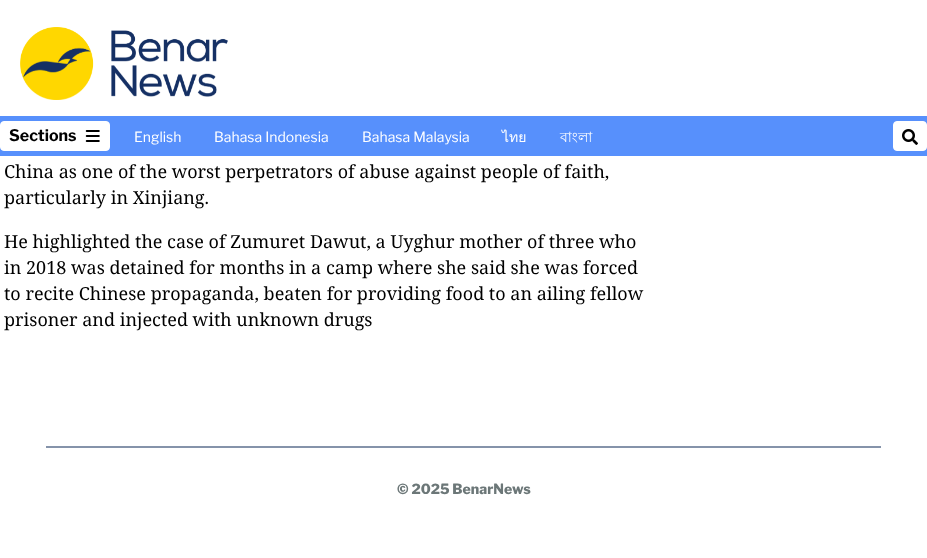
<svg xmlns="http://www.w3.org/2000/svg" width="927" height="558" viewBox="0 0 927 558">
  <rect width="100%" height="100%" fill="#ffffff"/>
  <image x="20" y="27" width="208" height="73" href="img1.png"/>
  <rect x="0" y="116" width="927" height="40" fill="#5790fc"/>
  <rect x="0.5" y="121.5" width="109" height="29" rx="3.5" fill="#ffffff" stroke="#ffffff"/>
  <text x="9" y="141" font-family="Libre Franklin" font-size="16" font-weight="bold" fill="#000000">Sections</text>
  <image x="85" y="130" width="15" height="12" href="img2.png"/>
  <text x="134" y="142" font-family="Libre Franklin" font-size="14" fill="#ffffff">English</text>
  <text x="214" y="142" font-family="Libre Franklin" font-size="14" fill="#ffffff">Bahasa Indonesia</text>
  <text x="362" y="142" font-family="Libre Franklin" font-size="14" fill="#ffffff">Bahasa Malaysia</text>
  <text x="502" y="142" font-family="Loma" font-size="14" fill="#ffffff">ไทย</text>
  <text x="560" y="142" font-family="Lohit Bengali" font-size="14" fill="#ffffff">বাংলা</text>
  <rect x="893.5" y="121.5" width="33" height="29" rx="3.5" fill="#ffffff" stroke="#ffffff"/>
  <image x="902" y="129" width="16" height="16" href="img3.png"/>
  <text x="4" y="178" font-family="Noto Serif" font-size="18" fill="#000000">China as one of the worst perpetrators of abuse against people of faith,</text>
  <text x="4" y="204" font-family="Noto Serif" font-size="18" fill="#000000">particularly in Xinjiang.</text>
  <text x="4" y="248" font-family="Noto Serif" font-size="18" fill="#000000">He highlighted the case of Zumuret Dawut, a Uyghur mother of three who</text>
  <text x="4" y="274" font-family="Noto Serif" font-size="18" fill="#000000">in 2018 was detained for months in a camp where she said she was forced</text>
  <text x="4" y="300" font-family="Noto Serif" font-size="18" fill="#000000">to recite Chinese propaganda, beaten for providing food to an ailing fellow</text>
  <text x="4" y="326" font-family="Noto Serif" font-size="18" fill="#000000">prisoner and injected with unknown drugs</text>
  <rect x="46" y="446" width="835" height="2" fill="#8593aa"/>
  <text x="397" y="494" font-family="Libre Franklin" font-size="14" font-weight="800" fill="#6c7778">© 2025 BenarNews</text>
</svg>
